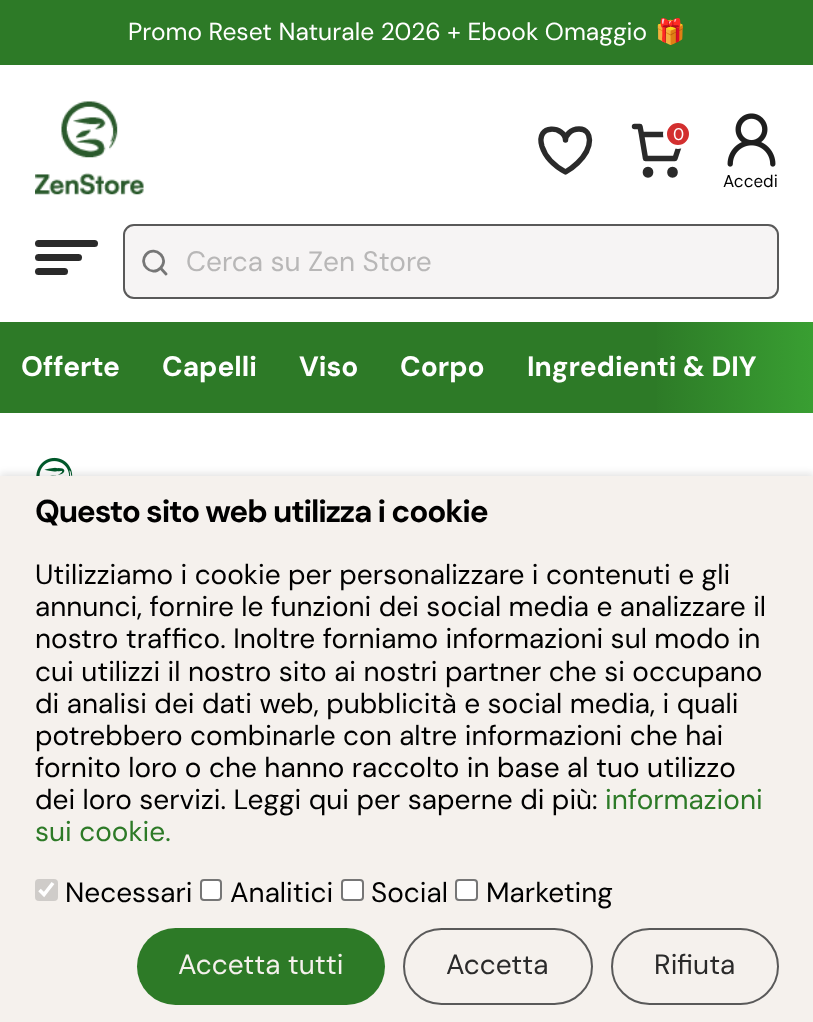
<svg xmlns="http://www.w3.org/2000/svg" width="813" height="1022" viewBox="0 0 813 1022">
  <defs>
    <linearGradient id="g1" gradientUnits="userSpaceOnUse" x1="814" y1="367" x2="0" y2="368"><stop offset="0" stop-color="#399f32"/><stop offset="0.2" stop-color="#399f32" stop-opacity="0"/></linearGradient>
    <filter id="blur1" x="-50%" y="-200%" width="200%" height="500%"><feGaussianBlur stdDeviation="3.5"/></filter>
  </defs>
  <rect width="100%" height="100%" fill="#ffffff"/>
  <rect x="0" y="0" width="813" height="65" fill="#2d7a27"/>
  <text x="128" y="40" font-family="'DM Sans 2'" font-size="24.6" fill="#ffffff">Promo Reset Naturale 2026 + Ebook Omaggio</text>
  <text x="655" y="40" font-family="Noto Color Emoji" font-size="24.6" fill="#ffffff">🎁</text>
  <image x="35" y="101" width="109" height="94" href="img1.png"/>
  <path d="M579 129C570 129 565.5 136 565.5 140C565.5 126.5 535 122.5 542 146.5C545.5 157.5 555.5 166.5 565.5 172C565.5 172 589.5 158.5 589.5 140C589.5 136 587.5 129 579 129Z" fill="none" stroke="#2a2a2a" stroke-width="5.4" stroke-linecap="round" stroke-linejoin="round"/>
  <path d="M634.5 126.5H640L641.5 134.5M641.5 134.5L645.5 158.5H675L683 134.5ZM648 175C651.5 175 651.5 169.5 648 169.5C644.5 169.5 644.5 175 648 175ZM672.5 175C676 175 676 169.5 672.5 169.5C669 169.5 669 175 672.5 175Z" fill="none" stroke="#2a2a2a" stroke-width="5.4" stroke-linecap="round" stroke-linejoin="round"/>
  <circle cx="678" cy="134" r="13" fill="#d32f2f" stroke="#ffffff" stroke-width="4"/>
  <text x="673" y="140" font-family="DM Sans" font-size="17" fill="#ffffff">0</text>
  <image x="727" y="113" width="49" height="54" href="img2.png"/>
  <text x="723" y="187" font-family="DM Sans" font-size="17" fill="#000000">Accedi</text>
  <rect x="35" y="240" width="63" height="7" rx="3.5" fill="#2a2a2a"/>
  <rect x="35" y="254" width="47" height="7" rx="3.5" fill="#2a2a2a"/>
  <rect x="35" y="268" width="33" height="7" rx="3.5" fill="#2a2a2a"/>
  <rect x="123" y="224" width="656" height="75" rx="11" fill="#f6f4f4"/>
  <path d="M166 274L160.5 268M160.5 268C170 259 155.5 245 146.5 254C137.5 263.5 151.5 277.5 160.5 268Z" fill="none" stroke="#767676" stroke-width="2.8" stroke-linecap="round" stroke-linejoin="round"/>
  <rect x="124" y="225" width="654" height="73" rx="10" fill="none" stroke="#595959" stroke-width="2"/>
  <text x="186" y="271" font-family="'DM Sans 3'" font-size="28" fill="#b8b7b7">Cerca su Zen Store</text>
  <rect x="0" y="322" width="813" height="91" fill="#2d7a27"/>
  <rect x="657" y="322" width="156" height="91" fill="url(#g1)"/>
  <text x="21" y="376" font-family="DM Sans" font-size="28" font-weight="bold" fill="#ffffff">Offerte</text>
  <text x="162" y="376" font-family="DM Sans" font-size="28" font-weight="bold" fill="#ffffff">Capelli</text>
  <text x="299" y="376" font-family="DM Sans" font-size="28" font-weight="bold" fill="#ffffff">Viso</text>
  <text x="400" y="376" font-family="DM Sans" font-size="28" font-weight="bold" fill="#ffffff">Corpo</text>
  <text x="527" y="376" font-family="DM Sans" font-size="28" font-weight="bold" fill="#ffffff">Ingredienti &amp; DIY</text>
  <image x="36" y="457" width="37" height="19" href="img3.png"/>
  <rect x="0" y="473" width="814" height="546" fill="#000000" fill-opacity="0.1" filter="url(#blur1)"/>
  <rect x="0" y="476" width="813" height="546" fill="#f5f1ed"/>
  <text x="35" y="522" font-family="'DM Sans 2'" font-size="31.5" font-weight="bold" letter-spacing="-1.15" fill="#000000">Questo sito web utilizza i cookie</text>
  <text x="35" y="584" font-family="'DM Sans 3'" font-size="28" fill="#000000">Utilizziamo i cookie per personalizzare i contenuti e gli</text>
  <text x="35" y="616" font-family="'DM Sans 3'" font-size="28" fill="#000000">annunci, fornire le funzioni dei social media e analizzare il</text>
  <text x="35" y="648" font-family="'DM Sans 3'" font-size="28" fill="#000000">nostro traffico. Inoltre forniamo informazioni sul modo in</text>
  <text x="35" y="681" font-family="'DM Sans 3'" font-size="28" fill="#000000">cui utilizzi il nostro sito ai nostri partner che si occupano</text>
  <text x="35" y="713" font-family="'DM Sans 3'" font-size="28" fill="#000000">di analisi dei dati web, pubblicità e social media, i quali</text>
  <text x="35" y="745" font-family="'DM Sans 3'" font-size="28" fill="#000000">potrebbero combinarle con altre informazioni che hai</text>
  <text x="35" y="777" font-family="'DM Sans 3'" font-size="28" fill="#000000">fornito loro o che hanno raccolto in base al tuo utilizzo</text>
  <text x="35" y="809" font-family="'DM Sans 3'" font-size="28" fill="#000000">dei loro servizi. Leggi qui per saperne di più:</text>
  <text x="605" y="809" font-family="'DM Sans 3'" font-size="28" fill="#2d7a27">informazioni</text>
  <text x="35" y="841" font-family="'DM Sans 3'" font-size="28" fill="#2d7a27">sui cookie.</text>
  <rect x="35" y="879" width="23" height="22" rx="4" fill="#cfccc9"/>
  <path d="M39.5 890L44 894.5L53 883" fill="none" stroke="#ffffff" stroke-width="3.6"/>
  <text x="65" y="902" font-family="'DM Sans 3'" font-size="28" fill="#000000">Necessari</text>
  <rect x="201" y="880" width="20" height="20" rx="3" fill="#ffffff" stroke="#767676" stroke-width="2"/>
  <text x="230" y="902" font-family="'DM Sans 3'" font-size="28" fill="#000000">Analitici</text>
  <rect x="342" y="880" width="21" height="20" rx="3" fill="#ffffff" stroke="#767676" stroke-width="2"/>
  <text x="371" y="902" font-family="'DM Sans 3'" font-size="28" fill="#000000">Social</text>
  <rect x="456" y="880" width="21" height="20" rx="3" fill="#ffffff" stroke="#767676" stroke-width="2"/>
  <text x="486" y="902" font-family="'DM Sans 3'" font-size="28" fill="#000000">Marketing</text>
  <rect x="137" y="928" width="248" height="77" rx="38.5" fill="#2d7a27"/>
  <text x="178" y="974" font-family="'DM Sans 3'" font-size="28" fill="#f5f1ed">Accetta tutti</text>
  <rect x="404" y="929" width="188" height="75" rx="37.5" fill="none" stroke="#595959" stroke-width="2"/>
  <text x="446" y="974" font-family="'DM Sans 3'" font-size="28" fill="#2a2a2a">Accetta</text>
  <rect x="612" y="929" width="166" height="75" rx="37.5" fill="none" stroke="#595959" stroke-width="2"/>
  <text x="654" y="974" font-family="'DM Sans 3'" font-size="28" fill="#2a2a2a">Rifiuta</text>
</svg>
